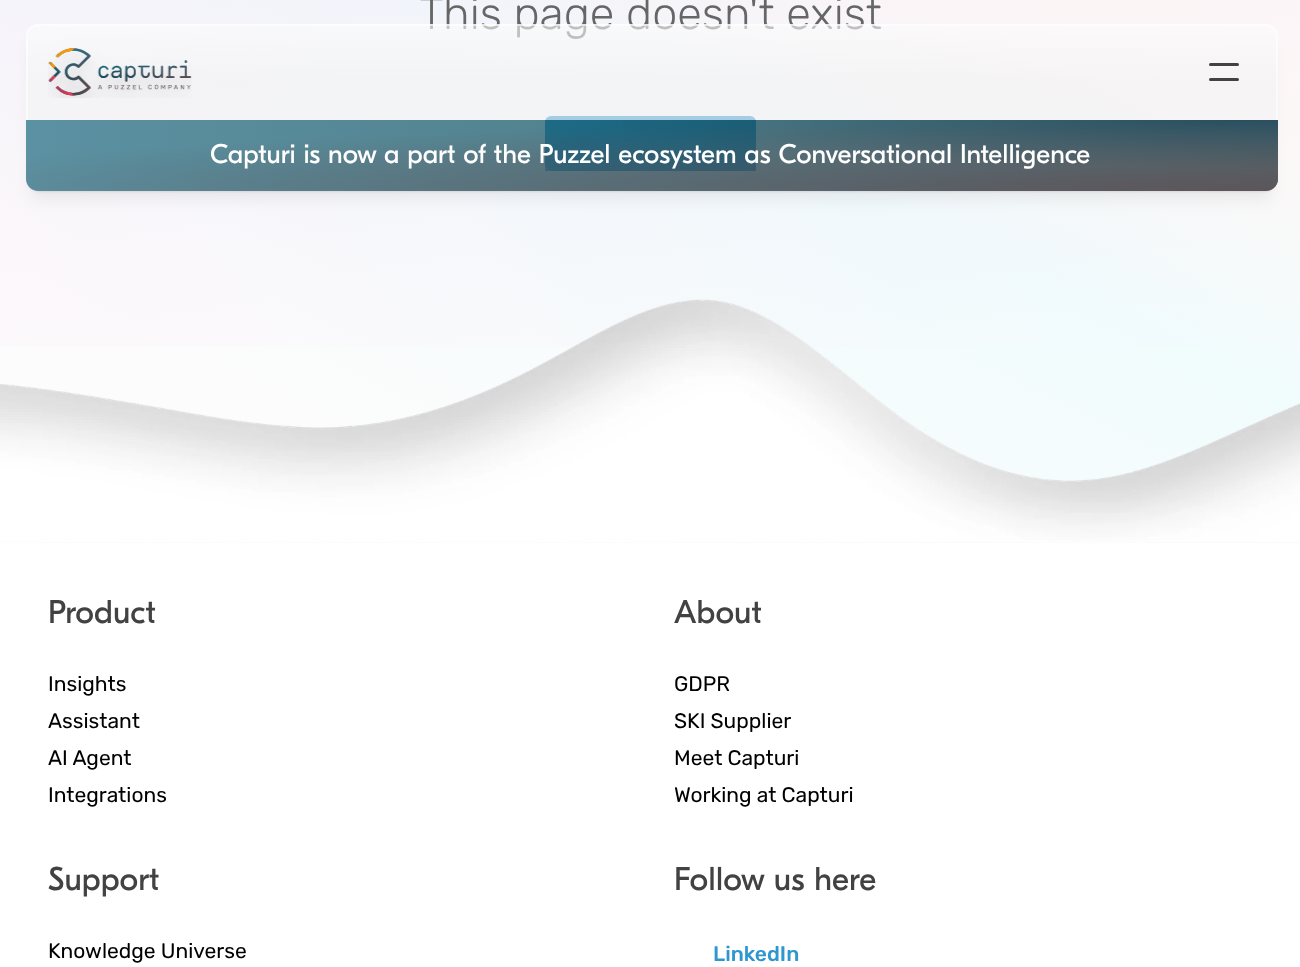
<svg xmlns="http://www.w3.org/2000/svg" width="1300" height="967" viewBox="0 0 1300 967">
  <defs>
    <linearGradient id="g1" gradientUnits="userSpaceOnUse" x1="1049" y1="-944" x2="251" y2="768"><stop offset="0.17" stop-color="#fcfcfc"/><stop offset="0.47" stop-color="#fcfbf8"/><stop offset="0.59" stop-color="#f1fcfd"/><stop offset="0.82" stop-color="#fcfcfc"/></linearGradient>
    <linearGradient id="g2" gradientUnits="userSpaceOnUse" x1="536" y1="-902" x2="765" y2="726"><stop offset="0.2" stop-color="#fd63d2" stop-opacity="0"/><stop offset="0.47" stop-color="#fd63d2" stop-opacity="0.06"/><stop offset="0.84" stop-color="#fd63d2" stop-opacity="0"/></linearGradient>
    <clipPath id="clip1"><rect x="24" y="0" width="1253" height="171"/></clipPath>
    <filter id="blur1" x="-50%" y="-200%" width="200%" height="500%"><feGaussianBlur stdDeviation="10.5"/></filter>
    <clipPath id="clip2"><rect x="24" y="0" width="1253" height="171"/></clipPath>
    <clipPath id="clip3"><path d="M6 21H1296V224H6ZM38 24H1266C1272.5 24 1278 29.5 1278 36V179C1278 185.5 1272.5 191 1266 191H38C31.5 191 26 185.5 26 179V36C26 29.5 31.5 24 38 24Z" clip-rule="evenodd"/></clipPath>
    <filter id="blur2" x="-50%" y="-200%" width="200%" height="500%"><feGaussianBlur stdDeviation="7.5"/></filter>
    <clipPath id="clip4"><path d="M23 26H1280V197H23ZM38 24H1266C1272.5 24 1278 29.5 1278 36V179C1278 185.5 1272.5 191 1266 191H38C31.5 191 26 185.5 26 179V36C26 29.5 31.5 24 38 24Z" clip-rule="evenodd"/></clipPath>
    <filter id="blur3" x="-50%" y="-200%" width="200%" height="500%"><feGaussianBlur stdDeviation="1.5"/></filter>
    <linearGradient id="g3" gradientUnits="userSpaceOnUse" x1="651" y1="24" x2="651" y2="120"><stop offset="0" stop-color="#fcfcfc" stop-opacity="0.6"/><stop offset="0.62" stop-color="#f2f2f2" stop-opacity="0.6"/></linearGradient>
    <linearGradient id="g4" gradientUnits="userSpaceOnUse" x1="-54" y1="155" x2="1277" y2="155"><stop offset="0" stop-color="#27829c" stop-opacity="0.7"/><stop offset="1" stop-color="#0a454d" stop-opacity="0.7"/></linearGradient>
    <radialGradient id="g5" gradientUnits="userSpaceOnUse" cx="0" cy="0" r="1" gradientTransform="matrix(647 0 0 48 1238 120)"><stop offset="0" stop-color="#1b4963" stop-opacity="0.7"/><stop offset="1" stop-color="#1b4963" stop-opacity="0.01"/></radialGradient>
    <radialGradient id="g6" gradientUnits="userSpaceOnUse" cx="0" cy="0" r="1" gradientTransform="matrix(1374 0 0 71 1228 191)"><stop offset="0" stop-color="#705257" stop-opacity="0.7"/><stop offset="1" stop-color="#705257" stop-opacity="0.01"/></radialGradient>
  </defs>
  <rect width="100%" height="100%" fill="#ffffff"/>
  <rect x="0" y="0" width="1300" height="543" fill="url(#g1)"/>
  <rect x="0" y="0" width="1300" height="347" fill="url(#g2)"/>
  <text x="419" y="29" font-family="Rubik" font-size="45" font-weight="300" fill="#666667">This page doesn't exist</text>
  <g clip-path="url(#clip1)">
    <rect x="561" y="150" width="179" height="23" fill="#2f96d0" fill-opacity="0.5" filter="url(#blur1)"/>
  </g>
  <g clip-path="url(#clip2)">
    <path d="M545 167V168C545 171 548 174 551 174H750C753 174 756 171 756 168V165C756 168 753 171 750 171H550C548 171 546 170 545 167Z" fill="#2578a6"/>
  </g>
  <rect x="545" y="116" width="211" height="55" rx="6" fill="#2f96d0"/>
  <g clip-path="url(#clip3)">
    <rect x="30" y="45" width="1242" height="155" rx="6" fill="#000000" fill-opacity="0.06" filter="url(#blur2)"/>
  </g>
  <g clip-path="url(#clip4)">
    <rect x="29" y="32" width="1245" height="159" rx="9" fill="#000000" fill-opacity="0.16" filter="url(#blur3)"/>
  </g>
  <path d="M38 24H1266C1272.5 24 1278 29.5 1278 36V120H26V36C26 29.5 31.5 24 38 24Z" fill="url(#g3)"/>
  <rect x="27" y="25" width="1250" height="165" rx="11" fill="none" stroke="#ffffff" stroke-opacity="0.6" stroke-width="2"/>
  <image x="48" y="48" width="144" height="50" href="img1.png"/>
  <rect x="1209" y="63" width="30" height="3" rx="1.5" fill="#424242"/>
  <rect x="1209" y="78" width="30" height="3" rx="1.5" fill="#424242"/>
  <path d="M26 120H1278V179C1278 185.5 1272.5 191 1266 191H38C31.5 191 26 185.5 26 179Z" fill="url(#g4)"/>
  <rect x="623" y="120" width="655" height="46" fill="url(#g5)"/>
  <path d="M26 120H1278V179C1278 185.5 1272.5 191 1266 191H38C31.5 191 26 185.5 26 179Z" fill="url(#g6)"/>
  <path d="M26 120H1278V179C1278 185.5 1272.5 191 1266 191H38C31.5 191 26 185.5 26 179Z" fill="#0a0a0a" fill-opacity="0.1"/>
  <text x="210" y="163" font-family="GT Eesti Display" font-size="27" fill="#ffffff">Capturi is now a part of the Puzzel ecosystem as Conversational Intelligence</text>
  <image x="0" y="299" width="1300" height="243" href="img2.png"/>
  <text x="48" y="623" font-family="GT Eesti Display" font-size="33" fill="#424242">Product</text>
  <text x="48" y="691" font-family="Rubik" font-size="21" fill="#000000">Insights</text>
  <text x="48" y="728" font-family="Rubik" font-size="21" fill="#000000">Assistant</text>
  <text x="48" y="765" font-family="Rubik" font-size="21" fill="#000000">AI Agent</text>
  <text x="48" y="802" font-family="Rubik" font-size="21" fill="#000000">Integrations</text>
  <text x="674" y="623" font-family="GT Eesti Display" font-size="33" fill="#424242">About</text>
  <text x="674" y="691" font-family="Rubik" font-size="21" fill="#000000">GDPR</text>
  <text x="674" y="728" font-family="Rubik" font-size="21" fill="#000000">SKI Supplier</text>
  <text x="674" y="765" font-family="Rubik" font-size="21" fill="#000000">Meet Capturi</text>
  <text x="674" y="802" font-family="Rubik" font-size="21" fill="#000000">Working at Capturi</text>
  <text x="48" y="890" font-family="GT Eesti Display" font-size="33" fill="#424242">Support</text>
  <text x="48" y="958" font-family="Rubik" font-size="21" fill="#000000">Knowledge Universe</text>
  <text x="674" y="890" font-family="GT Eesti Display" font-size="33" fill="#424242">Follow us here</text>
  <text x="713" y="961" font-family="Rubik" font-size="21" font-weight="500" fill="#2f96d0">LinkedIn</text>
</svg>
